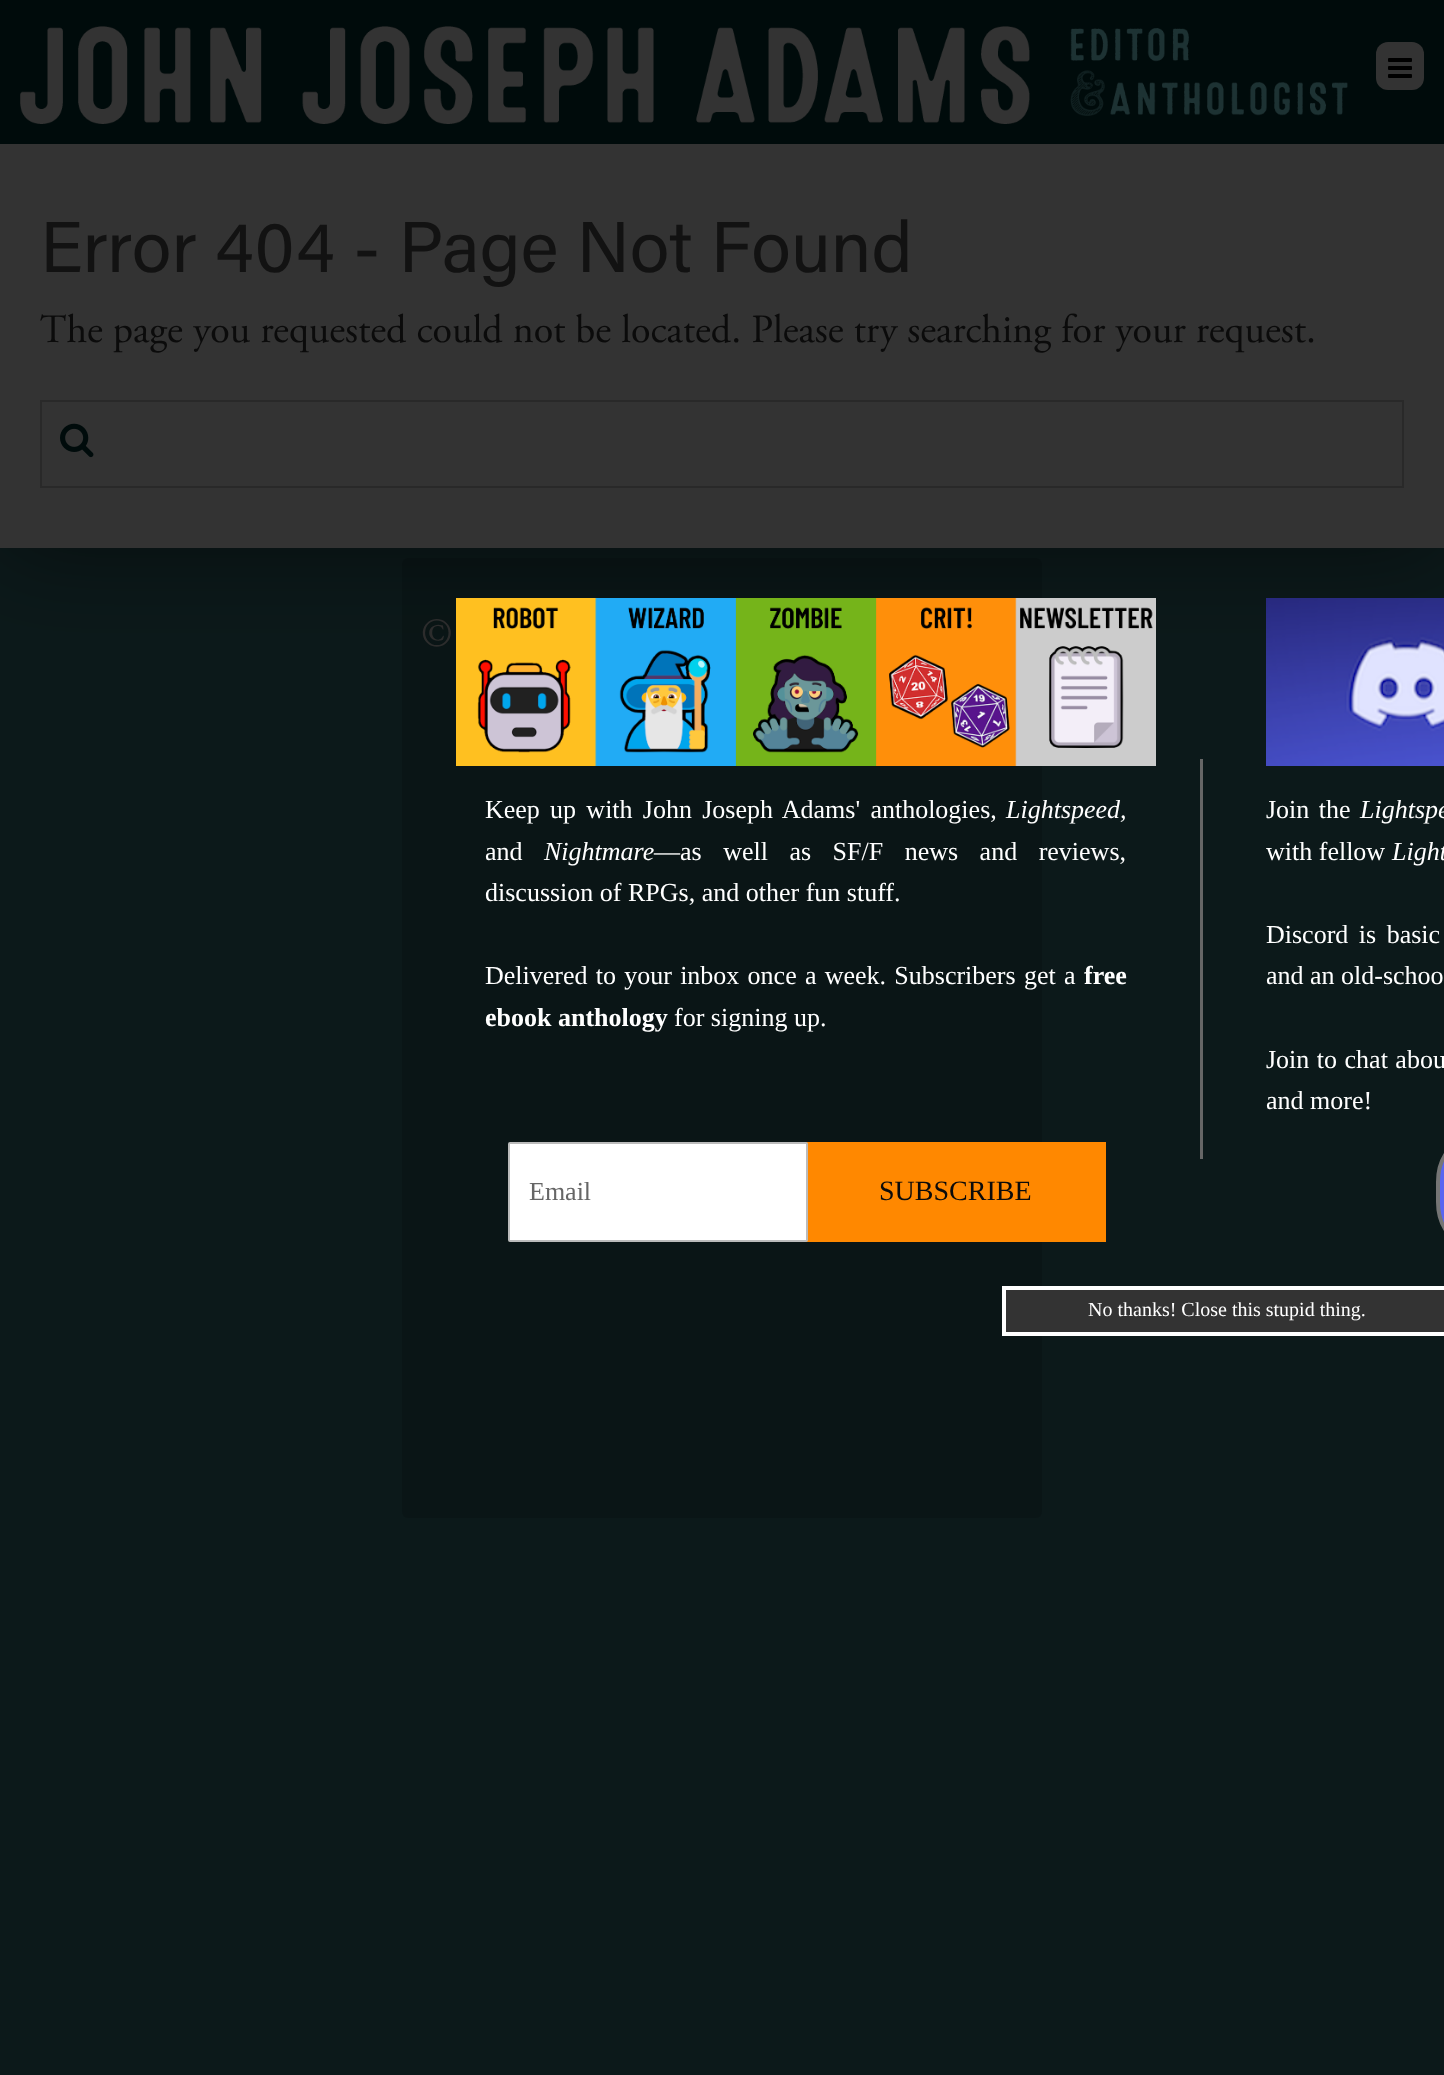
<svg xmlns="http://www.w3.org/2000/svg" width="1444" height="2075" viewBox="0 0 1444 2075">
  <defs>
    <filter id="blur1" x="-50%" y="-200%" width="200%" height="500%"><feGaussianBlur stdDeviation="50"/></filter>
  </defs>
  <rect width="100%" height="100%" fill="#0c191a"/>
  <rect x="0" y="144" width="1444" height="404" fill="#000000" fill-opacity="0.5" filter="url(#blur1)"/>
  <rect x="0" y="0" width="1444" height="144" fill="#000b0b"/>
  <image x="20" y="26" width="1010" height="98" href="img1.png"/>
  <image x="1070" y="28" width="278" height="88" href="img2.png"/>
  <rect x="1376" y="42" width="48" height="48" rx="12" fill="#333333"/>
  <image x="1388" y="58" width="24" height="20" href="img3.png"/>
  <rect x="0" y="144" width="1444" height="404" fill="#333333"/>
  <text x="40" y="272" font-family="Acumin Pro" font-size="72" fill="#121212">Error 404 - Page Not Found</text>
  <text x="40" y="342" font-family="Adobe Garamond" font-size="40" fill="#0b0b0b">The page you requested could not be located. Please try searching for your request.</text>
  <rect x="41" y="401" width="1362" height="86" fill="none" stroke="#292929" stroke-width="2"/>
  <image x="60" y="423" width="34" height="35" href="img4.png"/>
  <text x="421" y="646" font-family="Adobe Garamond" font-size="40" fill="#333333">©</text>
  <rect x="402" y="558" width="640" height="960" rx="6" fill="#000000" fill-opacity="0.12"/>
  <image x="456" y="598" width="700" height="168" href="img5.png"/>
  <image x="1266" y="598" width="178" height="168" href="img6.png"/>
  <text x="485" y="818" word-spacing="3.75" font-family="Liberation Serif" font-size="26" fill="#ffffff">Keep up with John Joseph Adams' anthologies,</text>
  <text x="1006" y="818" font-family="Liberation Serif" font-size="26" font-style="italic" fill="#ffffff">Lightspeed,</text>
  <text x="485" y="860" font-family="Liberation Serif" font-size="26" fill="#ffffff">and</text>
  <text x="544" y="860" font-family="Liberation Serif" font-size="26" font-style="italic" fill="#ffffff">Nightmare</text>
  <text x="654" y="860" word-spacing="15" font-family="Liberation Serif" font-size="26" fill="#ffffff">—as well as SF/F news and reviews,</text>
  <text x="485" y="901" font-family="Liberation Serif" font-size="26" fill="#ffffff">discussion of RPGs, and other fun stuff.</text>
  <text x="485" y="984" word-spacing="1.75" font-family="Liberation Serif" font-size="26" fill="#ffffff">Delivered to your inbox once a week. Subscribers get a</text>
  <text x="1084" y="984" font-family="Liberation Serif" font-size="26" font-weight="bold" fill="#ffffff">free</text>
  <text x="485" y="1026" font-family="Liberation Serif" font-size="26" font-weight="bold" fill="#ffffff">ebook anthology</text>
  <text x="674" y="1026" font-family="Liberation Serif" font-size="26" fill="#ffffff">for signing up.</text>
  <rect x="1200" y="759" width="3" height="400" fill="#666666"/>
  <text x="1266" y="818" word-spacing="3" font-family="Liberation Serif" font-size="26" fill="#ffffff">Join the</text>
  <text x="1360" y="818" font-family="Liberation Serif" font-size="26" font-style="italic" fill="#ffffff">Lightspe</text>
  <text x="1266" y="860" font-family="Liberation Serif" font-size="26" fill="#ffffff">with fellow</text>
  <text x="1392" y="860" font-family="Liberation Serif" font-size="26" font-style="italic" fill="#ffffff">Light</text>
  <text x="1266" y="943" word-spacing="4" font-family="Liberation Serif" font-size="26" fill="#ffffff">Discord is basic</text>
  <text x="1266" y="984" font-family="Liberation Serif" font-size="26" fill="#ffffff">and an old-schoo</text>
  <text x="1266" y="1068" word-spacing="1" font-family="Liberation Serif" font-size="26" fill="#ffffff">Join to chat abou</text>
  <text x="1266" y="1109" font-family="Liberation Serif" font-size="26" fill="#ffffff">and more!</text>
  <rect x="806" y="1142" width="300" height="100" fill="#ff8800"/>
  <rect x="509" y="1143" width="298" height="98" rx="1" fill="#ffffff" stroke="#bbbbbb" stroke-width="2"/>
  <text x="529" y="1200" font-family="Liberation Serif" font-size="26" fill="#666666">Email</text>
  <text x="879" y="1200" font-family="Liberation Serif" font-size="28" fill="#0b0b0b">SUBSCRIBE</text>
  <rect x="1438" y="1144" width="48" height="96" rx="38" fill="#5865f2" stroke="#757575" stroke-width="4"/>
  <rect x="1004" y="1288" width="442" height="46" fill="#333333" stroke="#ffffff" stroke-width="4"/>
  <text x="1088" y="1316" font-family="Liberation Serif" font-size="20" fill="#ffffff">No thanks! Close this stupid thing.</text>
</svg>
